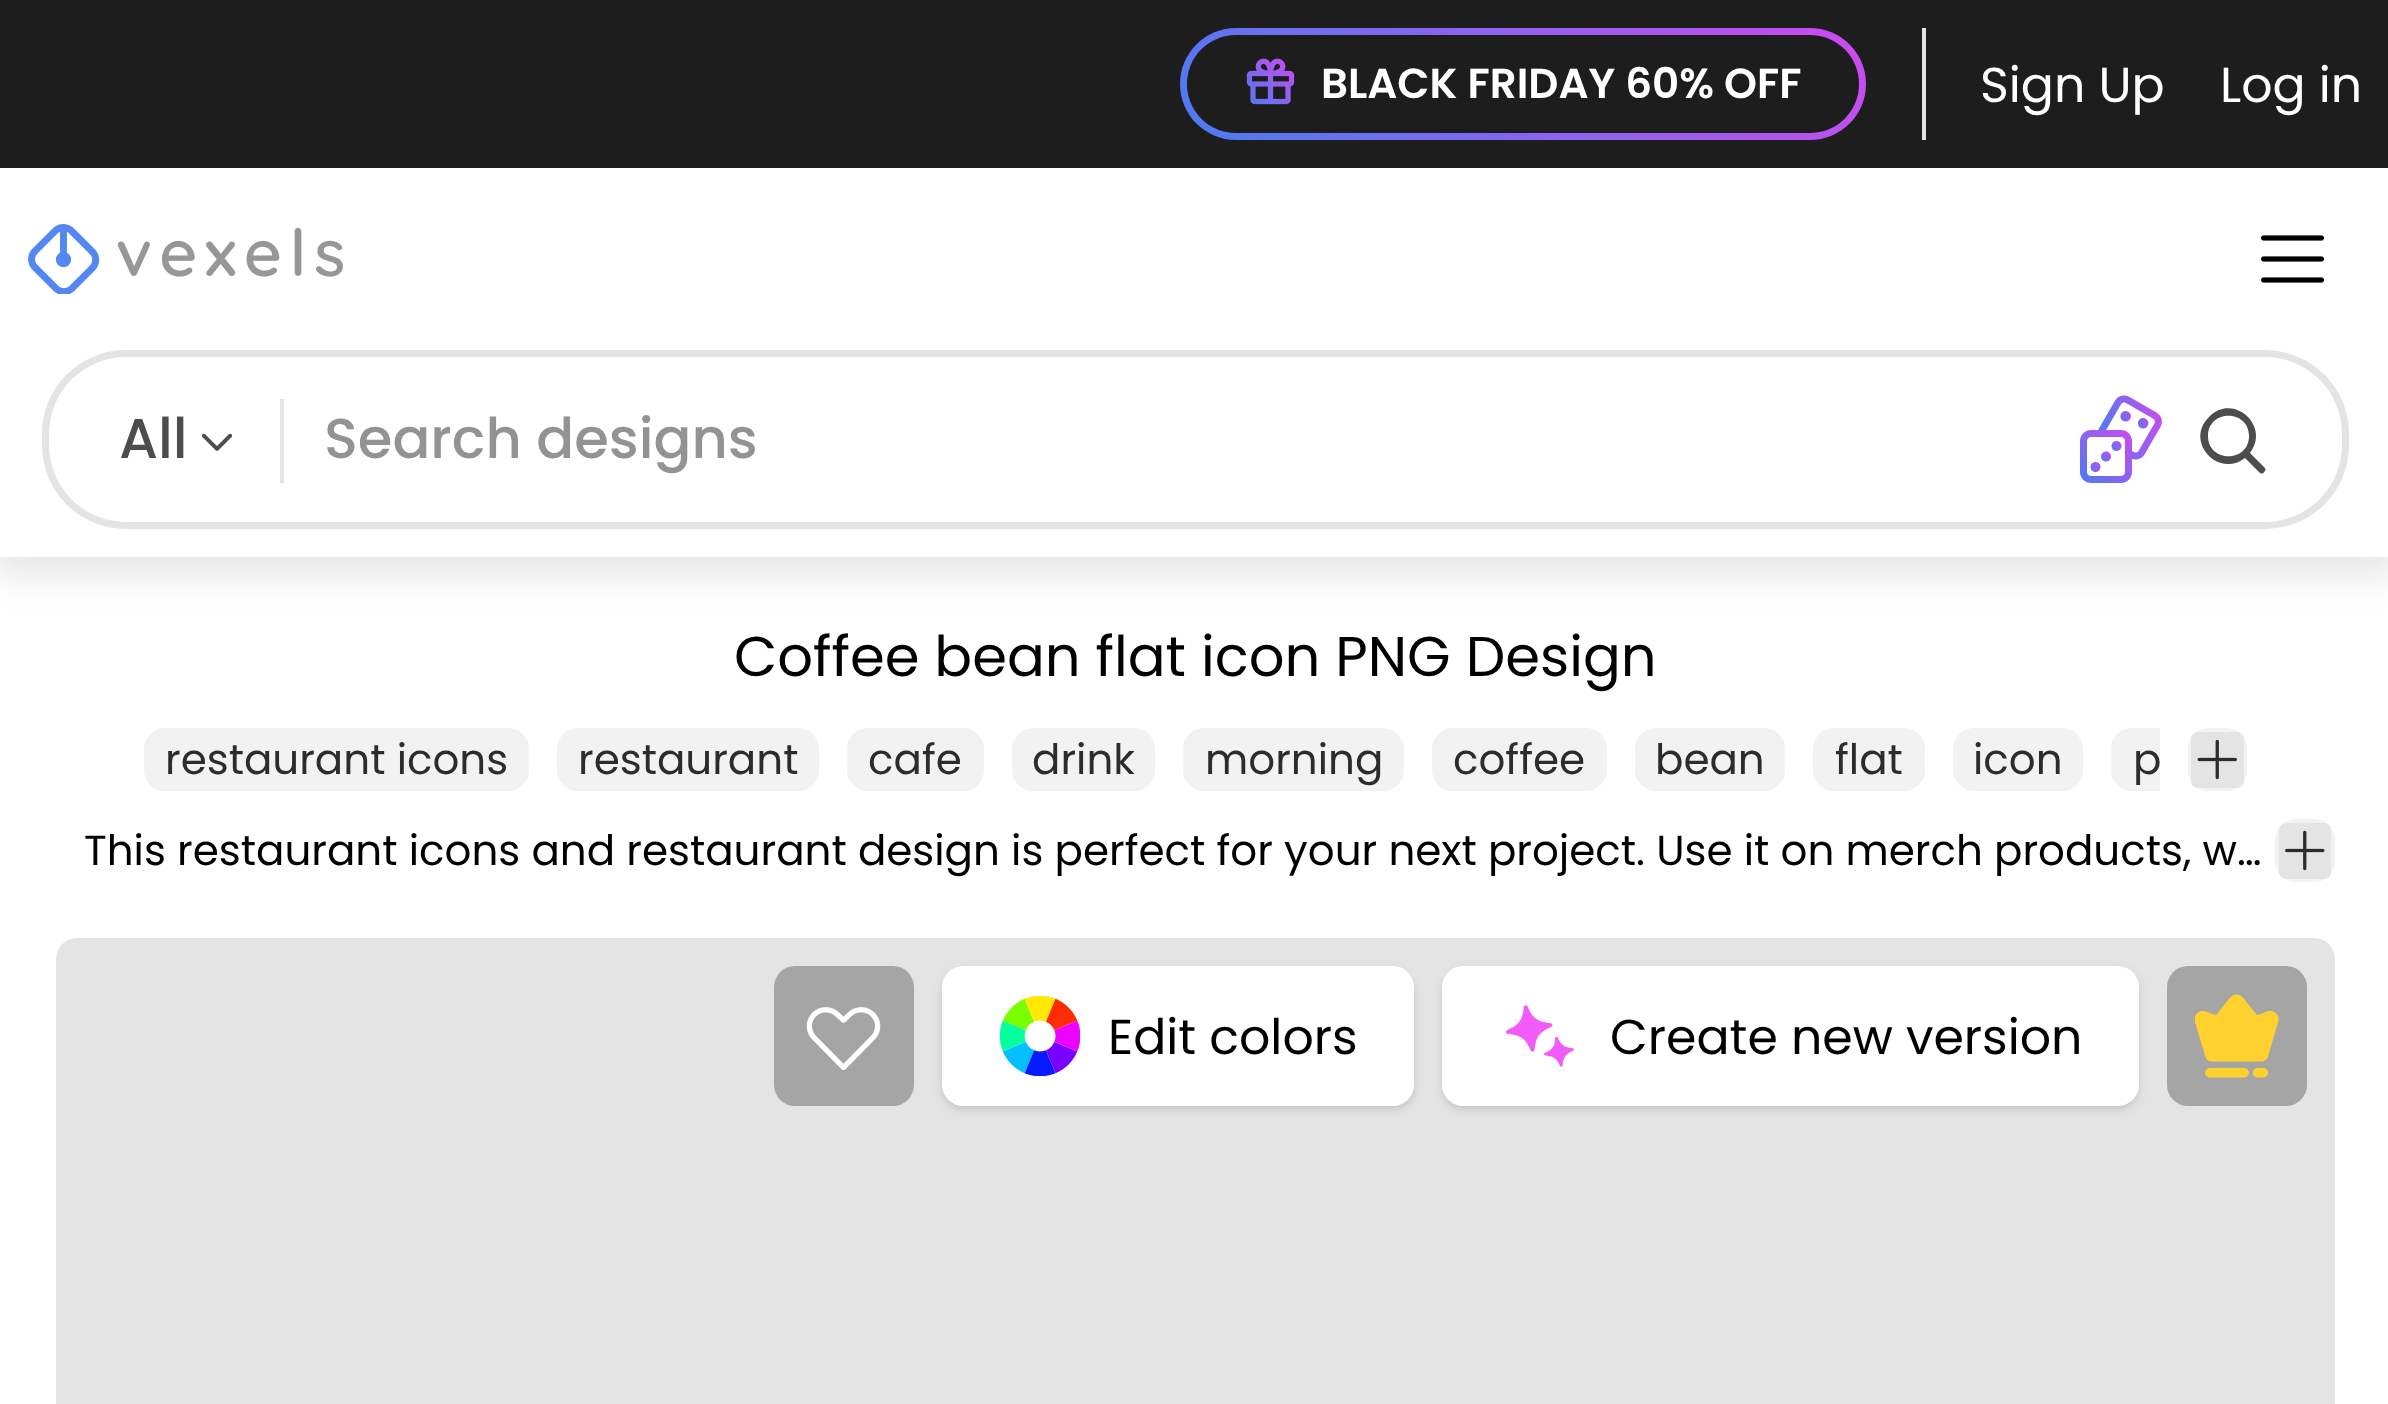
<svg xmlns="http://www.w3.org/2000/svg" width="2388" height="1404" viewBox="0 0 2388 1404">
  <defs>
    <filter id="blur1" x="-50%" y="-200%" width="200%" height="500%"><feGaussianBlur stdDeviation="19"/></filter>
    <linearGradient id="g1" gradientUnits="userSpaceOnUse" x1="1270" y1="319" x2="1771" y2="-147"><stop offset="0" stop-color="#3f80f1"/><stop offset="1" stop-color="#d946ef"/></linearGradient>
    <filter id="blur2" x="-50%" y="-200%" width="200%" height="500%"><feGaussianBlur stdDeviation="3.5"/></filter>
    <filter id="blur3" x="-50%" y="-200%" width="200%" height="500%"><feGaussianBlur stdDeviation="5"/></filter>
  </defs>
  <rect width="100%" height="100%" fill="#ffffff"/>
  <rect x="-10" y="-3" width="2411" height="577" fill="#000000" fill-opacity="0.1" filter="url(#blur1)"/>
  <rect x="0" y="0" width="2388" height="168" fill="#1d1d1d"/>
  <rect x="1922" y="28" width="4" height="112" fill="#e4e4e4"/>
  <rect x="1180" y="28" width="686" height="112" rx="56" fill="url(#g1)"/>
  <rect x="1187" y="35" width="672" height="98" rx="49" fill="#1d1d1d"/>
  <image x="1246" y="58" width="49" height="47" href="img1.png"/>
  <text x="1321" y="98" font-family="Poppins" font-size="42" font-weight="600" fill="#ffffff">BLACK FRIDAY 60% OFF</text>
  <text x="1980" y="102" font-family="Poppins" font-size="49" fill="#ffffff">Sign Up</text>
  <text x="2220" y="102" font-family="Poppins" font-size="49" fill="#ffffff">Log in</text>
  <rect x="0" y="168" width="2388" height="389" fill="#ffffff"/>
  <image x="28" y="224" width="315" height="70" href="img2.png"/>
  <image x="2261" y="235" width="63" height="48" href="img3.png"/>
  <rect x="45.5" y="353.5" width="2300" height="172" rx="80.5" fill="none" stroke="#e4e4e4" stroke-width="7"/>
  <rect x="280" y="399" width="4" height="84" fill="#e4e4e4"/>
  <text x="119" y="458" font-family="Poppins" font-size="56" font-weight="500" fill="#4d4d4d">All</text>
  <image x="201" y="433" width="32" height="18" href="img4.png"/>
  <text x="324" y="458" font-family="Poppins" font-size="56" font-weight="500" fill="#939393">Search designs</text>
  <image x="2080" y="395" width="82" height="88" href="img5.png"/>
  <path d="M2264 467L2250 453C2271 426 2233 392 2209 417C2184 441 2218 479 2245 458L2259 472C2261 474 2263 474 2264 472C2266 471 2266 469 2264 467ZM2208 436C2208 409 2249 409 2249 436C2249 463 2208 463 2208 436Z" fill="#4d4d4d"/>
  <text x="734" y="676" font-family="Poppins" font-size="56" fill="#000000">Coffee bean flat icon PNG Design</text>
  <rect x="144" y="728" width="385" height="63" rx="21" fill="#f2f2f2"/>
  <text x="165" y="774" font-family="Poppins" font-size="42" fill="#2c2c2c">restaurant icons</text>
  <rect x="557" y="728" width="262" height="63" rx="21" fill="#f2f2f2"/>
  <text x="578" y="774" font-family="Poppins" font-size="42" fill="#2c2c2c">restaurant</text>
  <rect x="847" y="728" width="137" height="63" rx="21" fill="#f2f2f2"/>
  <text x="868" y="774" font-family="Poppins" font-size="42" fill="#2c2c2c">cafe</text>
  <rect x="1012" y="728" width="143" height="63" rx="21" fill="#f2f2f2"/>
  <text x="1032" y="774" font-family="Poppins" font-size="42" fill="#2c2c2c">drink</text>
  <rect x="1183" y="728" width="221" height="63" rx="21" fill="#f2f2f2"/>
  <text x="1205" y="774" font-family="Poppins" font-size="42" fill="#2c2c2c">morning</text>
  <rect x="1432" y="728" width="175" height="63" rx="21" fill="#f2f2f2"/>
  <text x="1453" y="774" font-family="Poppins" font-size="42" fill="#2c2c2c">coffee</text>
  <rect x="1635" y="728" width="150" height="63" rx="21" fill="#f2f2f2"/>
  <text x="1655" y="774" font-family="Poppins" font-size="42" fill="#2c2c2c">bean</text>
  <rect x="1813" y="728" width="112" height="63" rx="21" fill="#f2f2f2"/>
  <text x="1835" y="774" font-family="Poppins" font-size="42" fill="#2c2c2c">flat</text>
  <rect x="1953" y="728" width="130" height="63" rx="21" fill="#f2f2f2"/>
  <text x="1973" y="774" font-family="Poppins" font-size="42" fill="#2c2c2c">icon</text>
  <path d="M2132 728H2160V791H2132C2120.5 791 2111 781.5 2111 770V749C2111 737.5 2120.5 728 2132 728Z" fill="#f2f2f2"/>
  <text x="2133" y="774" font-family="Poppins" font-size="42" fill="#2c2c2c">p</text>
  <rect x="2188" y="728" width="59" height="63" rx="21" fill="#f2f2f2"/>
  <rect x="2191" y="732" width="53" height="56" rx="7" fill="#e4e4e4"/>
  <image x="2197" y="739" width="40" height="41" href="img6.png"/>
  <text x="84" y="865" font-family="Poppins" font-size="42" fill="#000000">This restaurant icons and restaurant design is perfect for your next project. Use it on merch products, w…</text>
  <rect x="2275" y="819" width="60" height="63" rx="21" fill="#f2f2f2"/>
  <rect x="2279" y="823" width="52" height="56" rx="7" fill="#e4e4e4"/>
  <image x="2285" y="830" width="40" height="41" href="img7.png"/>
  <rect x="56" y="938" width="2279" height="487" rx="21" fill="#e4e4e4"/>
  <rect x="774" y="966" width="140" height="140" rx="21" fill="#a5a5a5"/>
  <image x="806" y="1007" width="75" height="64" href="img8.png"/>
  <rect x="945" y="973" width="466" height="133" rx="18" fill="#000000" fill-opacity="0.1" filter="url(#blur2)"/>
  <rect x="942" y="970" width="472" height="140" rx="21" fill="#000000" fill-opacity="0.1" filter="url(#blur3)"/>
  <rect x="942" y="966" width="472" height="140" rx="21" fill="#ffffff"/>
  <image x="1000" y="996" width="80" height="80" href="img9.png"/>
  <text x="1108" y="1054" font-family="Poppins" font-size="49" fill="#000000">Edit colors</text>
  <rect x="1446" y="973" width="689" height="133" rx="18" fill="#000000" fill-opacity="0.1" filter="url(#blur2)"/>
  <rect x="1442" y="970" width="697" height="140" rx="21" fill="#000000" fill-opacity="0.1" filter="url(#blur3)"/>
  <rect x="1442" y="966" width="697" height="140" rx="21" fill="#ffffff"/>
  <image x="1506" y="1005" width="68" height="62" href="img10.png"/>
  <text x="1610" y="1054" font-family="Poppins" font-size="49" fill="#000000">Create new version</text>
  <rect x="2167" y="966" width="140" height="140" rx="21" fill="#a5a5a5"/>
  <image x="2195" y="994" width="84" height="84" href="img11.png"/>
</svg>
